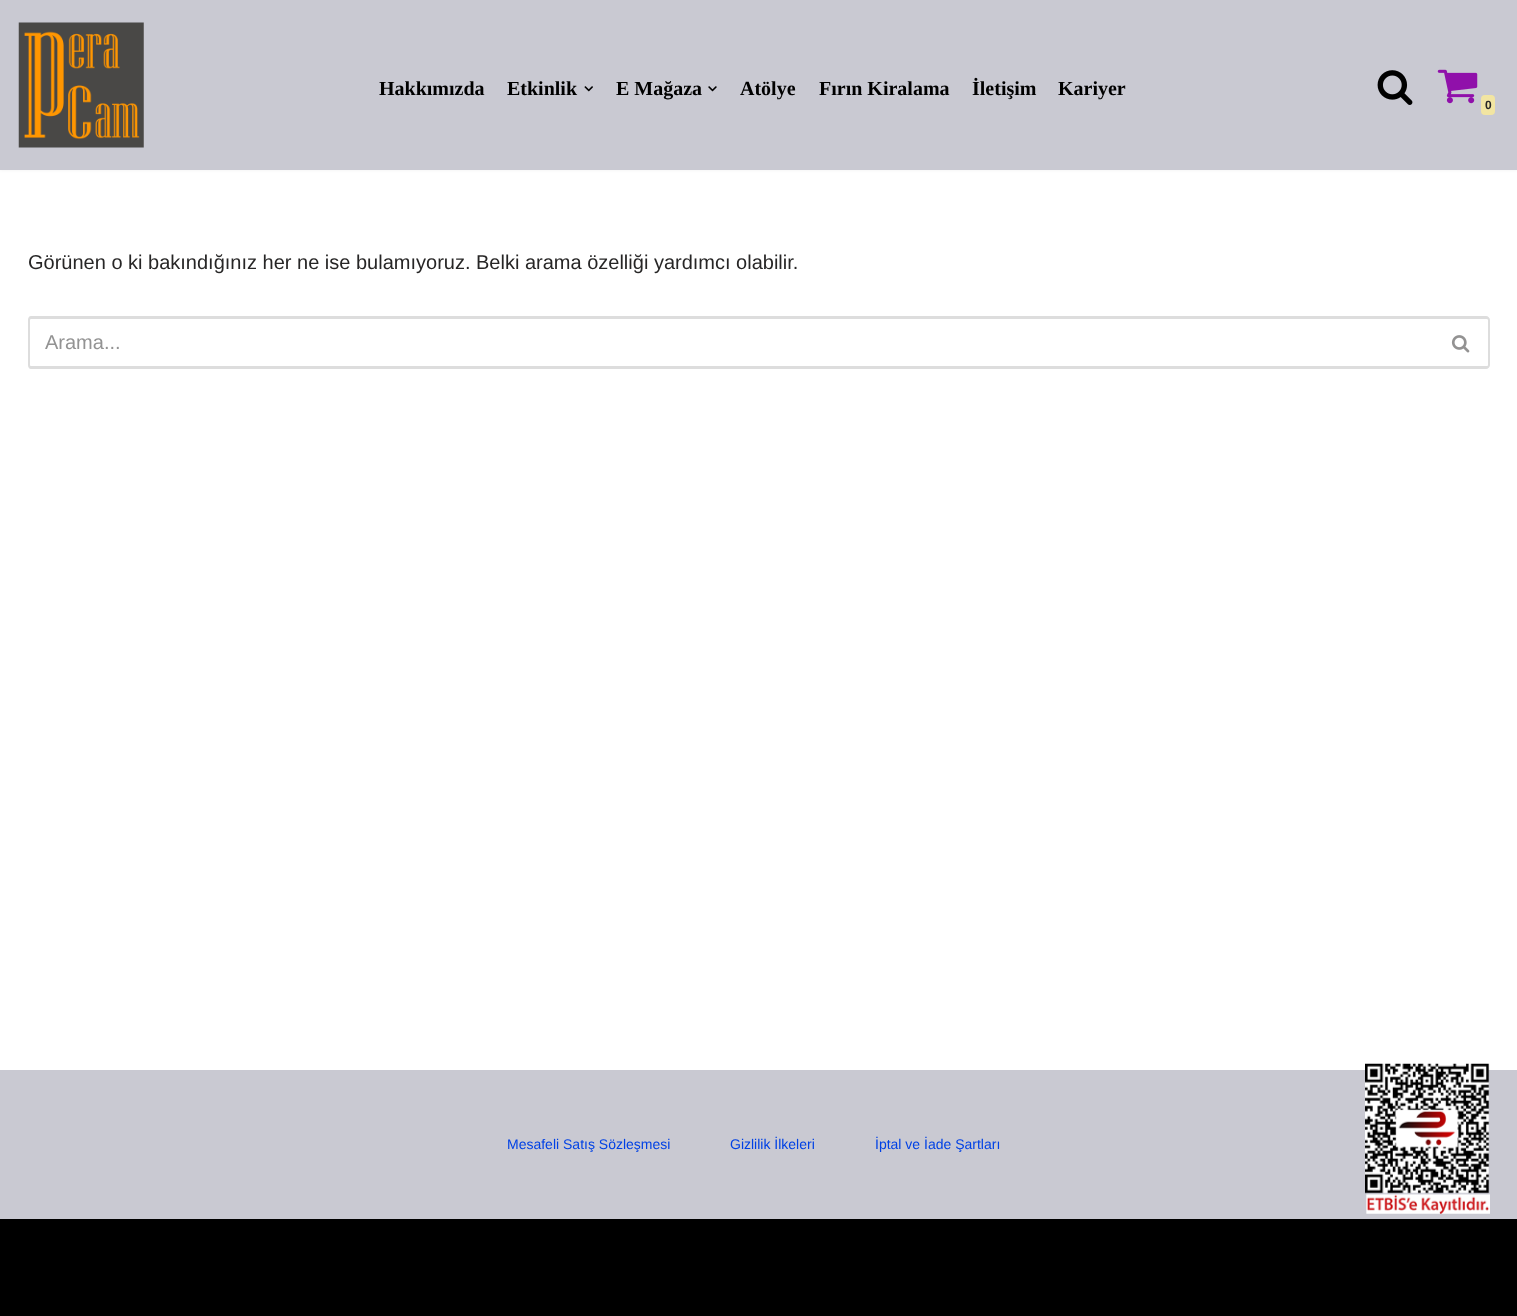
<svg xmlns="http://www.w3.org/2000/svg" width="1517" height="1316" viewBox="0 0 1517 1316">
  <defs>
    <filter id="blur1" x="-50%" y="-200%" width="200%" height="500%"><feGaussianBlur stdDeviation="2"/></filter>
  </defs>
  <rect width="100%" height="100%" fill="#ffffff"/>
  <rect x="0" y="-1" width="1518" height="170" fill="#000000" fill-opacity="0.1" filter="url(#blur1)"/>
  <rect x="0" y="0" width="1517" height="170" fill="#c9c9d2"/>
  <image x="18" y="22" width="126" height="126" href="img1.png"/>
  <text x="379" y="95" font-family="Liberation Serif" font-size="20" font-weight="bold" fill="#000000">Hakkımızda</text>
  <text x="507" y="95" font-family="Liberation Serif" font-size="20" font-weight="bold" fill="#000000">Etkinlik</text>
  <image x="584" y="86" width="9" height="6" href="img2.png"/>
  <text x="616" y="95" font-family="Liberation Serif" font-size="20" font-weight="bold" fill="#000000">E Mağaza</text>
  <image x="708" y="86" width="9" height="6" href="img3.png"/>
  <text x="740" y="95" font-family="Liberation Serif" font-size="20" font-weight="bold" fill="#000000">Atölye</text>
  <text x="819" y="95" font-family="Liberation Serif" font-size="20" font-weight="bold" fill="#000000">Fırın Kiralama</text>
  <text x="972" y="95" font-family="Liberation Serif" font-size="20" font-weight="bold" fill="#000000">İletişim</text>
  <text x="1058" y="95" font-family="Liberation Serif" font-size="20" font-weight="bold" fill="#000000">Kariyer</text>
  <image x="1377" y="70" width="36" height="35" href="img4.png"/>
  <image x="1437" y="69" width="41" height="35" href="img5.png"/>
  <rect x="1481" y="95" width="14" height="20" rx="4" fill="#f2e5a2"/>
  <text x="1485" y="109" font-family="Liberation Sans" font-size="12" font-weight="bold" fill="#272626">0</text>
  <text x="28" y="269" font-family="Liberation Sans" font-size="20" fill="#272626">Görünen o ki bakındığınız her ne ise bulamıyoruz. Belki arama özelliği yardımcı olabilir.</text>
  <path d="M31 316H1434V369H31C29 369 28 367 28 365V320C28 318 29 316 31 316ZM31 319H1434V366H31C31 366 30 366 30 365V320C30 319 31 319 31 319Z" fill="#dddddd" fill-rule="evenodd"/>
  <text x="45" y="349" font-family="Liberation Sans" font-size="20" fill="#939393">Arama...</text>
  <path d="M1434 316H1486C1488 316 1490 318 1490 320V365C1490 367 1488 369 1486 369H1434ZM1434 319H1486C1487 319 1488 319 1488 320V365C1488 366 1487 366 1486 366H1434Z" fill="#dddddd" fill-rule="evenodd"/>
  <image x="1451" y="335" width="19" height="18" href="img6.png"/>
  <rect x="0" y="1070" width="1517" height="149" fill="#c9c9d2"/>
  <text x="507" y="1149" font-family="Liberation Sans" font-size="14" fill="#0041e5">Mesafeli Satış Sözleşmesi</text>
  <text x="730" y="1149" font-family="Liberation Sans" font-size="14" fill="#0041e5">Gizlilik İlkeleri</text>
  <text x="875" y="1149" font-family="Liberation Sans" font-size="14" fill="#0041e5">İptal ve İade Şartları</text>
  <image x="1365" y="1063" width="125" height="151" href="img7.png"/>
  <rect x="0" y="1219" width="1517" height="97" fill="#000000"/>
</svg>
